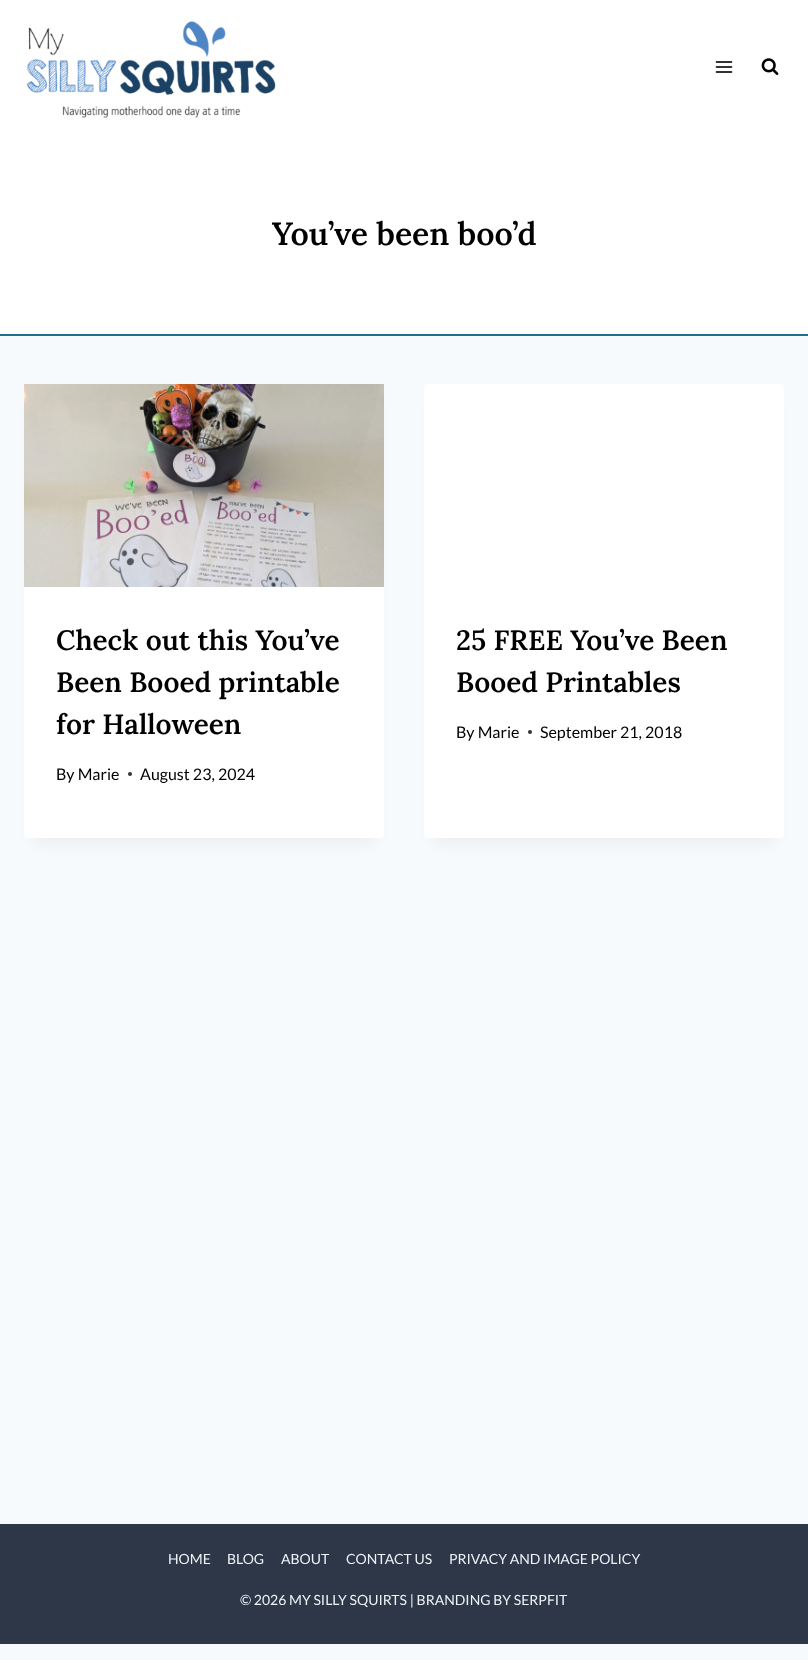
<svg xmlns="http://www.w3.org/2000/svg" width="808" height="1660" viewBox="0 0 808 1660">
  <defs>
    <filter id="blur1" x="-50%" y="-200%" width="200%" height="500%"><feGaussianBlur stdDeviation="7.5"/></filter>
  </defs>
  <rect width="100%" height="100%" fill="#f7fafc"/>
  <rect x="0" y="0" width="808" height="334" fill="#ffffff"/>
  <image x="26" y="21" width="250" height="97" href="img1.png"/>
  <image x="715" y="61" width="18" height="12" href="img2.png"/>
  <image x="761" y="58" width="18" height="17" href="img3.png"/>
  <rect x="0" y="334" width="808" height="2" fill="#216f8a"/>
  <text x="272" y="245" font-family="Lora" font-size="32" font-weight="600" fill="#000000">You’ve been boo’d</text>
  <rect x="34" y="409" width="340" height="434" fill="#000000" fill-opacity="0.05" filter="url(#blur1)"/>
  <rect x="24" y="384" width="360" height="454" rx="4" fill="#ffffff"/>
  <image x="24" y="384" width="360" height="203" href="img4.png"/>
  <text x="56" y="650" font-family="Lora" font-size="28" font-weight="600" fill="#000000">Check out this You’ve</text>
  <text x="56" y="692" font-family="Lora" font-size="28" font-weight="600" fill="#000000">Been Booed printable</text>
  <text x="56" y="734" font-family="Lora" font-size="28" font-weight="600" fill="#000000">for Halloween</text>
  <text x="56" y="780" font-family="Lato" font-size="16" fill="#000000">By Marie</text>
  <circle cx="130" cy="774" r="2" fill="#333333"/>
  <text x="140" y="780" font-family="Lato" font-size="16" fill="#000000">August 23, 2024</text>
  <rect x="434" y="409" width="340" height="434" fill="#000000" fill-opacity="0.05" filter="url(#blur1)"/>
  <rect x="424" y="384" width="360" height="454" rx="4" fill="#ffffff"/>
  <text x="456" y="650" font-family="Lora" font-size="28" font-weight="600" fill="#000000">25 FREE You’ve Been</text>
  <text x="456" y="692" font-family="Lora" font-size="28" font-weight="600" fill="#000000">Booed Printables</text>
  <text x="456" y="738" font-family="Lato" font-size="16" fill="#000000">By Marie</text>
  <circle cx="530" cy="732" r="2" fill="#333333"/>
  <text x="540" y="738" font-family="Lato" font-size="16" fill="#000000">September 21, 2018</text>
  <rect x="0" y="1524" width="808" height="120" fill="#2d3748"/>
  <text x="168" y="1564" font-family="Lato" font-size="14" fill="#edf2f7">HOME</text>
  <text x="227" y="1564" font-family="Lato" font-size="14" fill="#edf2f7">BLOG</text>
  <text x="281" y="1564" font-family="Lato" font-size="14" fill="#edf2f7">ABOUT</text>
  <text x="346" y="1564" font-family="Lato" font-size="14" fill="#edf2f7">CONTACT US</text>
  <text x="449" y="1564" font-family="Lato" font-size="14" fill="#edf2f7">PRIVACY AND IMAGE POLICY</text>
  <text x="240" y="1605" font-family="Lato" font-size="14" fill="#edf2f7">© 2026 MY SILLY SQUIRTS | BRANDING BY SERPFIT</text>
</svg>
